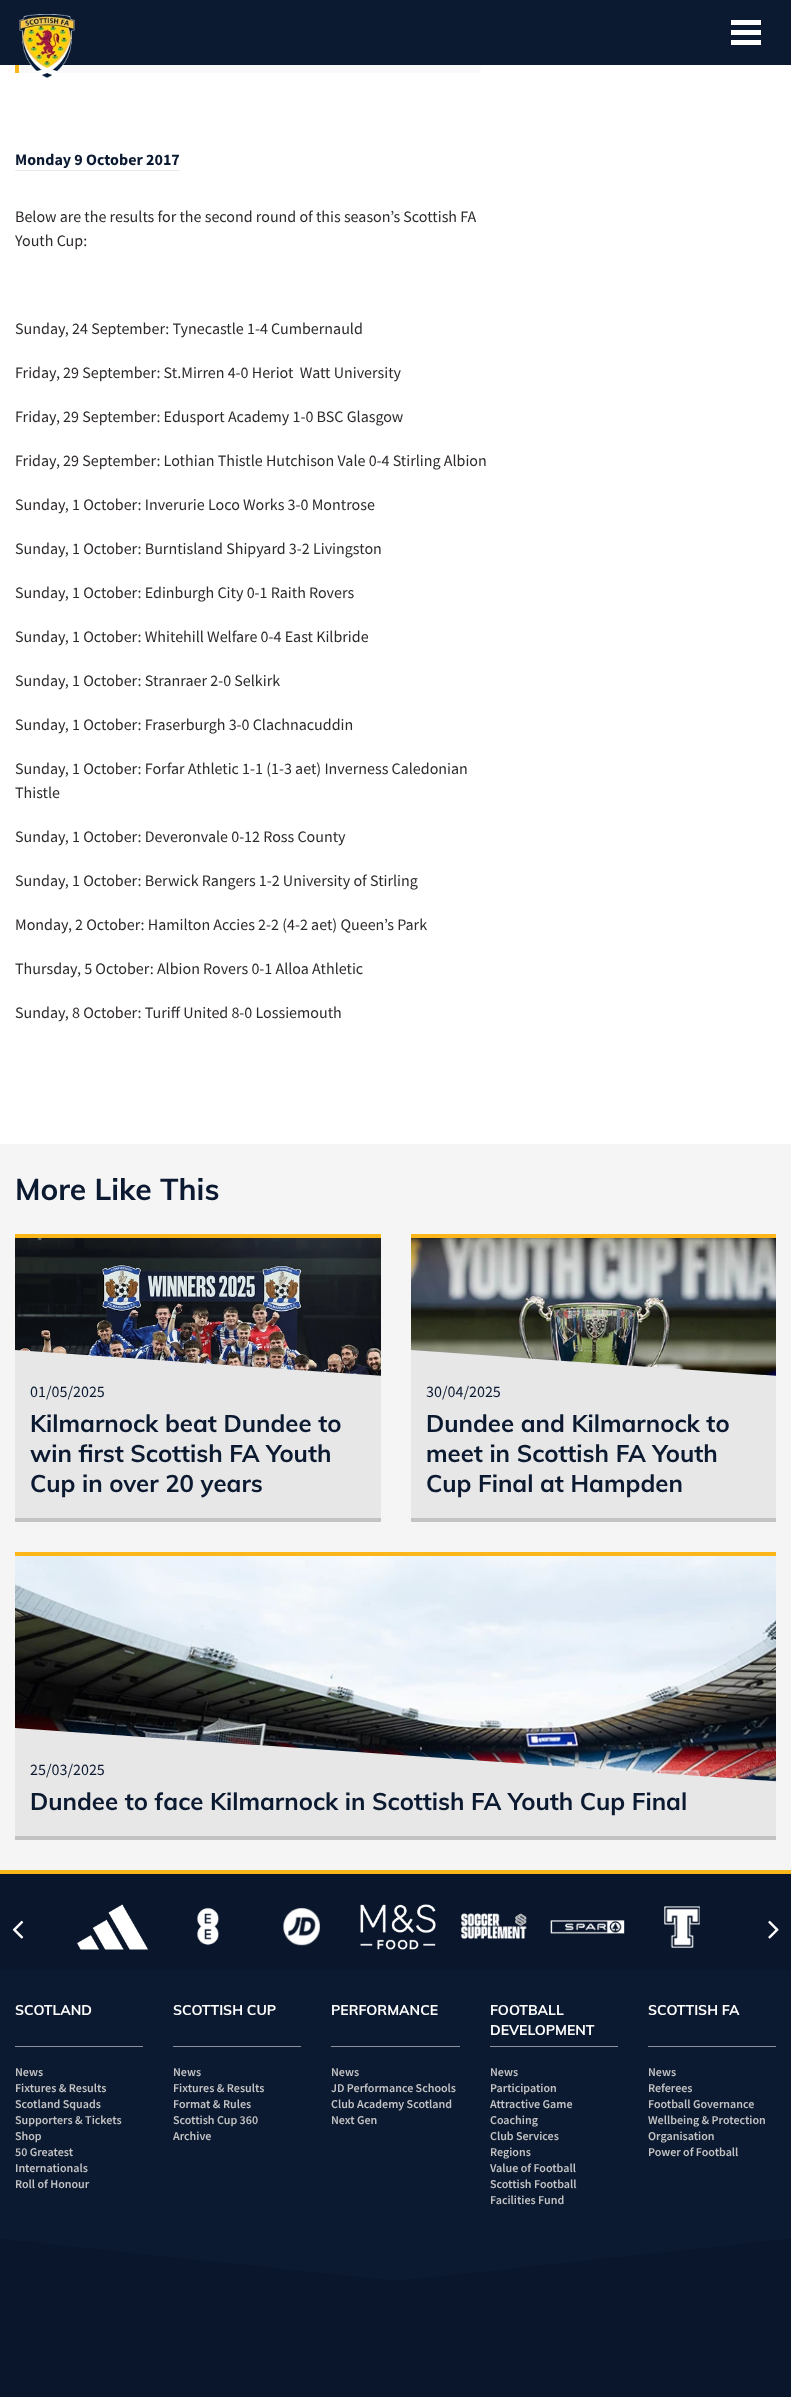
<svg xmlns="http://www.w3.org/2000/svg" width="791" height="2397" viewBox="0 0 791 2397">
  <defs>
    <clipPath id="clip1"><rect x="19" y="0" width="493" height="73"/></clipPath>
    <clipPath id="clip2"><rect x="15" y="1238" width="366" height="280"/></clipPath>
    <clipPath id="clip3"><rect x="411" y="1238" width="365" height="280"/></clipPath>
    <clipPath id="clip4"><rect x="15" y="1556" width="761" height="280"/></clipPath>
    <clipPath id="clip5"><rect x="0" y="1970" width="791" height="311"/></clipPath>
  </defs>
  <rect width="100%" height="100%" fill="#ffffff"/>
  <rect x="19" y="65" width="463" height="8" fill="#f9f9f9"/>
  <g clip-path="url(#clip1)">
    <path d="M512-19H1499L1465 73H479Z" fill="#ffffff"/>
  </g>
  <rect x="0" y="0" width="791" height="65" fill="#0c1a31"/>
  <image x="19" y="14" width="56" height="64" href="img1.png"/>
  <rect x="731" y="20" width="30" height="5" fill="#ffffff"/>
  <rect x="731" y="30" width="30" height="5" fill="#ffffff"/>
  <rect x="731" y="40" width="30" height="5" fill="#ffffff"/>
  <rect x="15" y="65" width="4" height="8" fill="#fbb719"/>
  <rect x="15" y="170" width="165" height="1" fill="#ebebeb"/>
  <text x="15" y="165" font-family="Source Sans Pro" font-size="16" font-weight="bold" fill="#0c1a31">Monday 9 October 2017</text>
  <text x="15" y="222" font-family="Source Sans Pro" font-size="16" fill="#2e2a2a">Below are the results for the second round of this season’s Scottish FA</text>
  <text x="15" y="246" font-family="Source Sans Pro" font-size="16" fill="#2e2a2a">Youth Cup:</text>
  <text x="15" y="334" font-family="Source Sans Pro" font-size="16" fill="#2e2a2a">Sunday, 24 September: Tynecastle 1-4 Cumbernauld</text>
  <text x="15" y="378" font-family="Source Sans Pro" font-size="16" fill="#2e2a2a" xml:space="preserve">Friday, 29 September: St.Mirren 4-0 Heriot  Watt University</text>
  <text x="15" y="422" font-family="Source Sans Pro" font-size="16" fill="#2e2a2a">Friday, 29 September: Edusport Academy 1-0 BSC Glasgow</text>
  <text x="15" y="466" font-family="Source Sans Pro" font-size="16" fill="#2e2a2a">Friday, 29 September: Lothian Thistle Hutchison Vale 0-4 Stirling Albion</text>
  <text x="15" y="510" font-family="Source Sans Pro" font-size="16" fill="#2e2a2a">Sunday, 1 October: Inverurie Loco Works 3-0 Montrose</text>
  <text x="15" y="554" font-family="Source Sans Pro" font-size="16" fill="#2e2a2a">Sunday, 1 October: Burntisland Shipyard 3-2 Livingston</text>
  <text x="15" y="598" font-family="Source Sans Pro" font-size="16" fill="#2e2a2a">Sunday, 1 October: Edinburgh City 0-1 Raith Rovers</text>
  <text x="15" y="642" font-family="Source Sans Pro" font-size="16" fill="#2e2a2a">Sunday, 1 October: Whitehill Welfare 0-4 East Kilbride</text>
  <text x="15" y="686" font-family="Source Sans Pro" font-size="16" fill="#2e2a2a">Sunday, 1 October: Stranraer 2-0 Selkirk</text>
  <text x="15" y="730" font-family="Source Sans Pro" font-size="16" fill="#2e2a2a">Sunday, 1 October: Fraserburgh 3-0 Clachnacuddin</text>
  <text x="15" y="774" font-family="Source Sans Pro" font-size="16" fill="#2e2a2a">Sunday, 1 October: Forfar Athletic 1-1 (1-3 aet) Inverness Caledonian</text>
  <text x="15" y="798" font-family="Source Sans Pro" font-size="16" fill="#2e2a2a">Thistle</text>
  <text x="15" y="842" font-family="Source Sans Pro" font-size="16" fill="#2e2a2a">Sunday, 1 October: Deveronvale 0-12 Ross County</text>
  <text x="15" y="886" font-family="Source Sans Pro" font-size="16" fill="#2e2a2a">Sunday, 1 October: Berwick Rangers 1-2 University of Stirling</text>
  <text x="15" y="930" font-family="Source Sans Pro" font-size="16" fill="#2e2a2a">Monday, 2 October: Hamilton Accies 2-2 (4-2 aet) Queen’s Park</text>
  <text x="15" y="974" font-family="Source Sans Pro" font-size="16" fill="#2e2a2a">Thursday, 5 October: Albion Rovers 0-1 Alloa Athletic</text>
  <text x="15" y="1018" font-family="Source Sans Pro" font-size="16" fill="#2e2a2a">Sunday, 8 October: Turiff United 8-0 Lossiemouth</text>
  <rect x="0" y="1144" width="791" height="726" fill="#f5f5f5"/>
  <text x="15" y="1200" font-family="Muli" font-size="30" font-weight="bold" fill="#0c1a31">More Like This</text>
  <rect x="15" y="1234" width="366" height="4" fill="#fbb719"/>
  <rect x="15" y="1518" width="366" height="4" fill="#c3c3c3"/>
  <image x="15" y="1238" width="366" height="138" href="img2.png"/>
  <g clip-path="url(#clip2)">
    <path d="M15 1350L454 1381V1884L15 1854Z" fill="#e7e7e7"/>
  </g>
  <text x="30" y="1397" font-family="Source Sans Pro" font-size="16" fill="#0c1a31">01/05/2025</text>
  <text x="30" y="1432" font-family="Muli" font-size="24" font-weight="bold" fill="#0c1a31">Kilmarnock beat Dundee to</text>
  <text x="30" y="1462" font-family="Muli" font-size="24" font-weight="bold" fill="#0c1a31">win first Scottish FA Youth</text>
  <text x="30" y="1492" font-family="Muli" font-size="24" font-weight="bold" fill="#0c1a31">Cup in over 20 years</text>
  <rect x="411" y="1234" width="365" height="4" fill="#fbb719"/>
  <rect x="411" y="1518" width="365" height="4" fill="#c3c3c3"/>
  <image x="411" y="1238" width="365" height="138" href="img3.png"/>
  <g clip-path="url(#clip3)">
    <path d="M410 1350L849 1381V1884L410 1854Z" fill="#e7e7e7"/>
  </g>
  <text x="426" y="1397" font-family="Source Sans Pro" font-size="16" fill="#0c1a31">30/04/2025</text>
  <text x="426" y="1432" font-family="Muli" font-size="24" font-weight="bold" fill="#0c1a31">Dundee and Kilmarnock to</text>
  <text x="426" y="1462" font-family="Muli" font-size="24" font-weight="bold" fill="#0c1a31">meet in Scottish FA Youth</text>
  <text x="426" y="1492" font-family="Muli" font-size="24" font-weight="bold" fill="#0c1a31">Cup Final at Hampden</text>
  <rect x="15" y="1552" width="761" height="4" fill="#fbb719"/>
  <rect x="15" y="1836" width="761" height="4" fill="#c3c3c3"/>
  <image x="15" y="1556" width="761" height="226" href="img4.png"/>
  <g clip-path="url(#clip4)">
    <path d="M15 1728L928 1792V2116L15 2052Z" fill="#e7e7e7"/>
  </g>
  <text x="30" y="1775" font-family="Source Sans Pro" font-size="16" fill="#0c1a31">25/03/2025</text>
  <text x="30" y="1810" font-family="Muli" font-size="24" font-weight="bold" fill="#0c1a31">Dundee to face Kilmarnock in Scottish FA Youth Cup Final</text>
  <rect x="0" y="1874" width="791" height="523" fill="#09162b"/>
  <rect x="0" y="1870" width="791" height="4" fill="#fbb719"/>
  <image x="12" y="1920" width="12" height="19" href="img5.png"/>
  <image x="77" y="1904" width="72" height="46" href="img6.png"/>
  <image x="197" y="1907" width="22" height="38" href="img7.png"/>
  <image x="283" y="1908" width="37" height="38" href="img8.png"/>
  <image x="360" y="1904" width="76" height="46" href="img9.png"/>
  <image x="461" y="1913" width="66" height="26" href="img10.png"/>
  <image x="550" y="1920" width="75" height="14" href="img11.png"/>
  <image x="664" y="1906" width="36" height="42" href="img12.png"/>
  <image x="768" y="1920" width="11" height="19" href="img13.png"/>
  <rect x="0" y="1970" width="791" height="311" fill="#0c1a31"/>
  <rect x="15" y="2046" width="128" height="1" fill="#8c919b"/>
  <text x="15" y="2015" font-family="Muli" font-size="14" font-weight="bold" fill="#ffffff">SCOTLAND</text>
  <text x="15" y="2076" font-family="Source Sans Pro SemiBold" font-size="12" font-weight="600" fill="#c3c3c3">News</text>
  <text x="15" y="2092" font-family="Source Sans Pro SemiBold" font-size="12" font-weight="600" fill="#c3c3c3">Fixtures &amp; Results</text>
  <text x="15" y="2108" font-family="Source Sans Pro SemiBold" font-size="12" font-weight="600" fill="#c3c3c3">Scotland Squads</text>
  <text x="15" y="2124" font-family="Source Sans Pro SemiBold" font-size="12" font-weight="600" fill="#c3c3c3">Supporters &amp; Tickets</text>
  <text x="15" y="2140" font-family="Source Sans Pro SemiBold" font-size="12" font-weight="600" fill="#c3c3c3">Shop</text>
  <text x="15" y="2156" font-family="Source Sans Pro SemiBold" font-size="12" font-weight="600" fill="#c3c3c3">50 Greatest</text>
  <text x="15" y="2172" font-family="Source Sans Pro SemiBold" font-size="12" font-weight="600" fill="#c3c3c3">Internationals</text>
  <text x="15" y="2188" font-family="Source Sans Pro SemiBold" font-size="12" font-weight="600" fill="#c3c3c3">Roll of Honour</text>
  <rect x="173" y="2046" width="128" height="1" fill="#8c919b"/>
  <text x="173" y="2015" font-family="Muli" font-size="14" font-weight="bold" fill="#ffffff">SCOTTISH CUP</text>
  <text x="173" y="2076" font-family="Source Sans Pro SemiBold" font-size="12" font-weight="600" fill="#c3c3c3">News</text>
  <text x="173" y="2092" font-family="Source Sans Pro SemiBold" font-size="12" font-weight="600" fill="#c3c3c3">Fixtures &amp; Results</text>
  <text x="173" y="2108" font-family="Source Sans Pro SemiBold" font-size="12" font-weight="600" fill="#c3c3c3">Format &amp; Rules</text>
  <text x="173" y="2124" font-family="Source Sans Pro SemiBold" font-size="12" font-weight="600" fill="#c3c3c3">Scottish Cup 360</text>
  <text x="173" y="2140" font-family="Source Sans Pro SemiBold" font-size="12" font-weight="600" fill="#c3c3c3">Archive</text>
  <rect x="331" y="2046" width="129" height="1" fill="#8c919b"/>
  <text x="331" y="2015" font-family="Muli" font-size="14" font-weight="bold" fill="#ffffff">PERFORMANCE</text>
  <text x="331" y="2076" font-family="Source Sans Pro SemiBold" font-size="12" font-weight="600" fill="#c3c3c3">News</text>
  <text x="331" y="2092" font-family="Source Sans Pro SemiBold" font-size="12" font-weight="600" fill="#c3c3c3">JD Performance Schools</text>
  <text x="331" y="2108" font-family="Source Sans Pro SemiBold" font-size="12" font-weight="600" fill="#c3c3c3">Club Academy Scotland</text>
  <text x="331" y="2124" font-family="Source Sans Pro SemiBold" font-size="12" font-weight="600" fill="#c3c3c3">Next Gen</text>
  <rect x="490" y="2046" width="128" height="1" fill="#8c919b"/>
  <text x="490" y="2015" font-family="Muli" font-size="14" font-weight="bold" fill="#ffffff">FOOTBALL</text>
  <text x="490" y="2035" font-family="Muli" font-size="14" font-weight="bold" fill="#ffffff">DEVELOPMENT</text>
  <text x="490" y="2076" font-family="Source Sans Pro SemiBold" font-size="12" font-weight="600" fill="#c3c3c3">News</text>
  <text x="490" y="2092" font-family="Source Sans Pro SemiBold" font-size="12" font-weight="600" fill="#c3c3c3">Participation</text>
  <text x="490" y="2108" font-family="Source Sans Pro SemiBold" font-size="12" font-weight="600" fill="#c3c3c3">Attractive Game</text>
  <text x="490" y="2124" font-family="Source Sans Pro SemiBold" font-size="12" font-weight="600" fill="#c3c3c3">Coaching</text>
  <text x="490" y="2140" font-family="Source Sans Pro SemiBold" font-size="12" font-weight="600" fill="#c3c3c3">Club Services</text>
  <text x="490" y="2156" font-family="Source Sans Pro SemiBold" font-size="12" font-weight="600" fill="#c3c3c3">Regions</text>
  <text x="490" y="2172" font-family="Source Sans Pro SemiBold" font-size="12" font-weight="600" fill="#c3c3c3">Value of Football</text>
  <text x="490" y="2188" font-family="Source Sans Pro SemiBold" font-size="12" font-weight="600" fill="#c3c3c3">Scottish Football</text>
  <text x="490" y="2204" font-family="Source Sans Pro SemiBold" font-size="12" font-weight="600" fill="#c3c3c3">Facilities Fund</text>
  <rect x="648" y="2046" width="128" height="1" fill="#8c919b"/>
  <text x="648" y="2015" font-family="Muli" font-size="14" font-weight="bold" fill="#ffffff">SCOTTISH FA</text>
  <text x="648" y="2076" font-family="Source Sans Pro SemiBold" font-size="12" font-weight="600" fill="#c3c3c3">News</text>
  <text x="648" y="2092" font-family="Source Sans Pro SemiBold" font-size="12" font-weight="600" fill="#c3c3c3">Referees</text>
  <text x="648" y="2108" font-family="Source Sans Pro SemiBold" font-size="12" font-weight="600" fill="#c3c3c3">Football Governance</text>
  <text x="648" y="2124" font-family="Source Sans Pro SemiBold" font-size="12" font-weight="600" fill="#c3c3c3">Wellbeing &amp; Protection</text>
  <text x="648" y="2140" font-family="Source Sans Pro SemiBold" font-size="12" font-weight="600" fill="#c3c3c3">Organisation</text>
  <text x="648" y="2156" font-family="Source Sans Pro SemiBold" font-size="12" font-weight="600" fill="#c3c3c3">Power of Football</text>
  <g clip-path="url(#clip5)">
    <path d="M0 2239L396 2281V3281L0 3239Z" fill="#09162b"/>
    <path d="M396 2281L791 2239V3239L396 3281Z" fill="#09162b"/>
  </g>
</svg>
